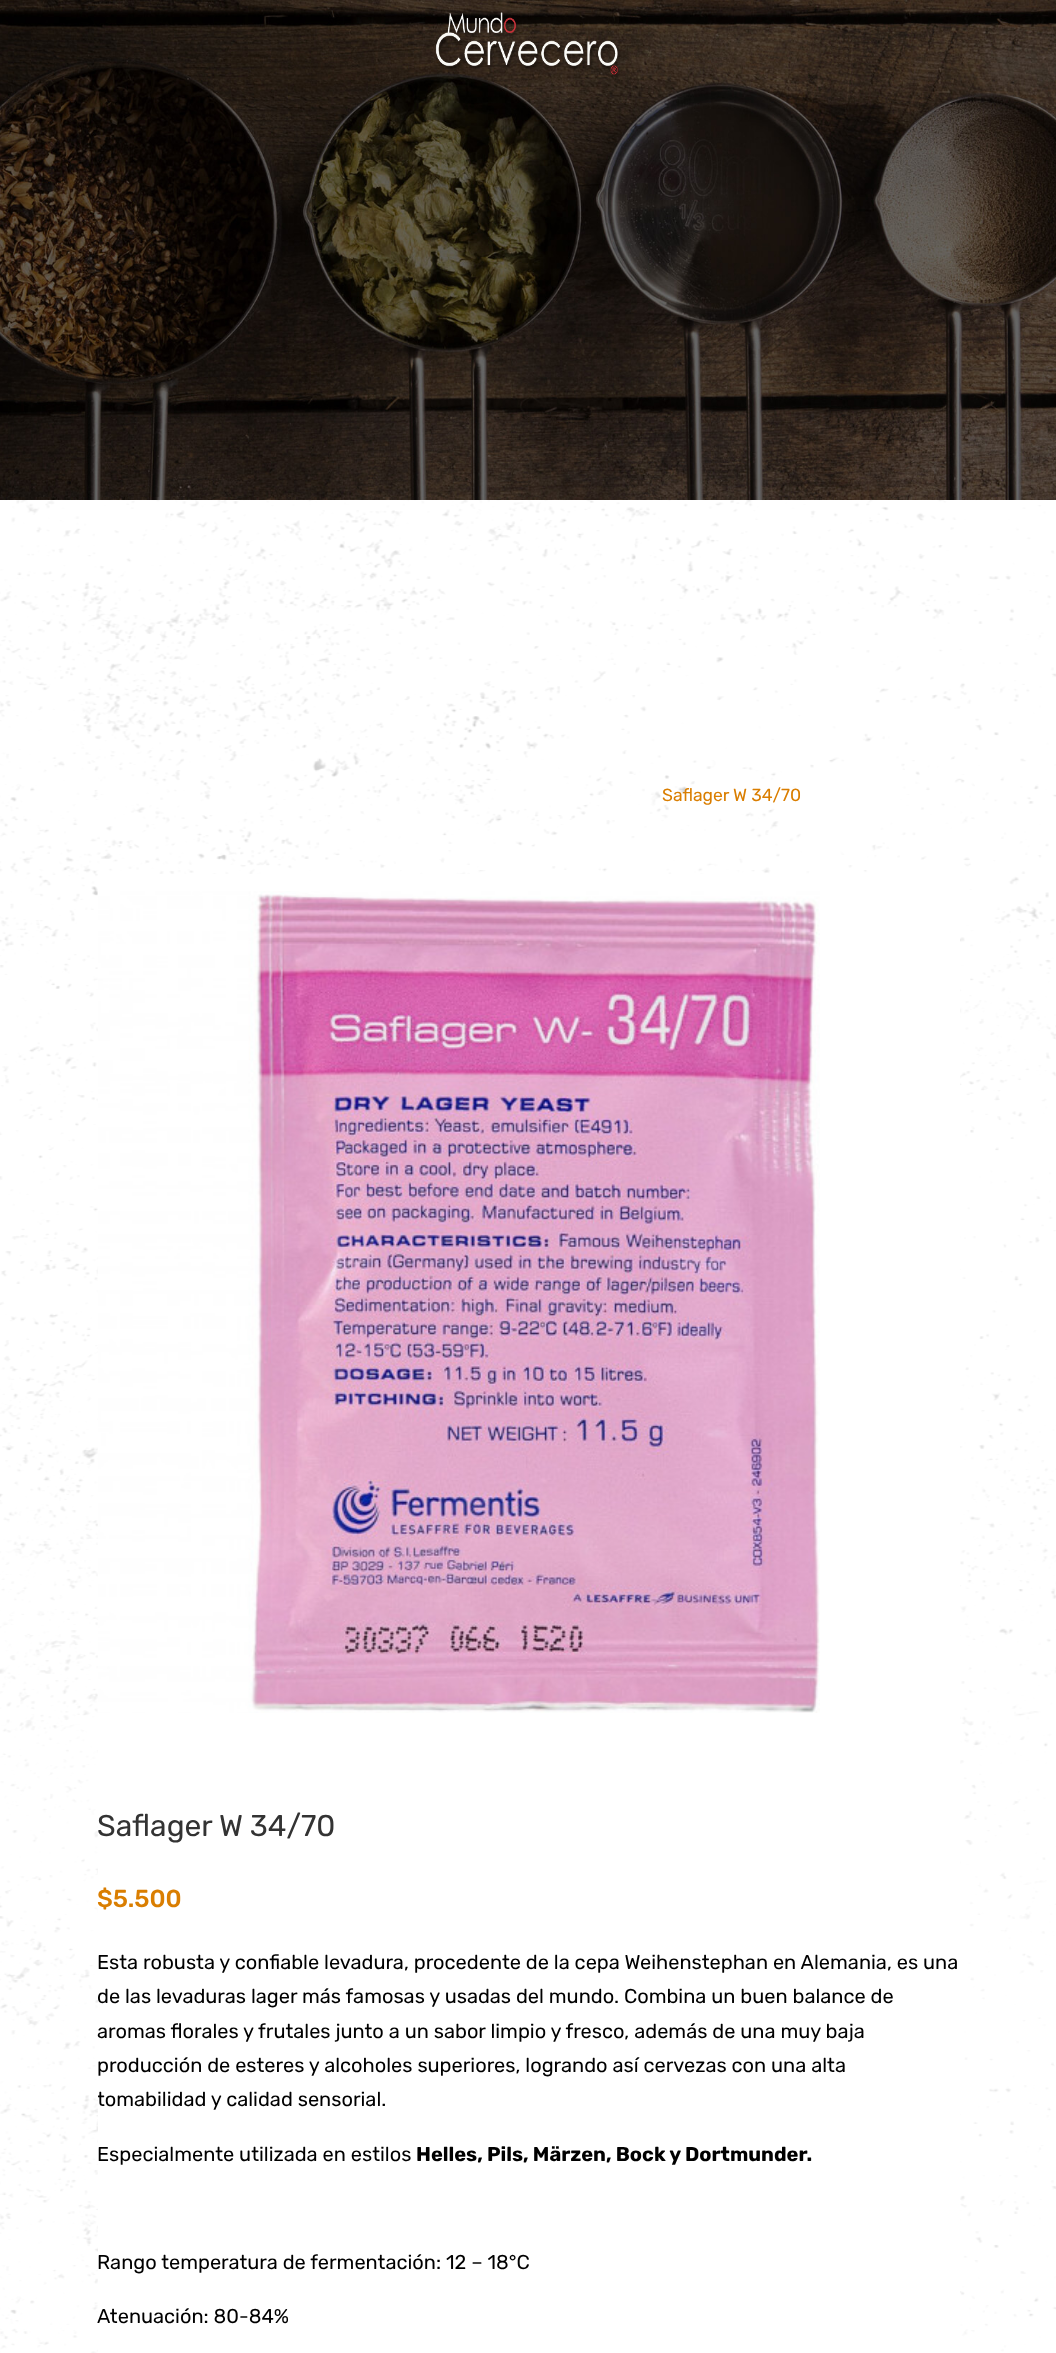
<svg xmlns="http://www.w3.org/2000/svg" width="1056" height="2353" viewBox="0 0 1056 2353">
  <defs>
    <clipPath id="clip1"><rect x="98" y="874" width="862" height="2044"/></clipPath>
  </defs>
  <rect width="100%" height="100%" fill="#ffffff"/>
  <image x="0" y="500" width="1056" height="1853" href="img1.png"/>
  <image x="0" y="0" width="1056" height="500" href="img2.png"/>
  <image x="435" y="12" width="185" height="66" href="img3.png"/>
  <text x="662" y="801" font-family="Rubik" font-size="17.5" fill="#da7e01">Saflager W 34/70</text>
  <rect x="98" y="874" width="862" height="1479" fill="#ffffff"/>
  <image x="97" y="891" width="723" height="822" href="img4.png"/>
  <text x="97" y="1836" font-family="Rubik" font-size="30" fill="#333333">Saflager W 34/70</text>
  <text x="97" y="1907" font-family="Rubik" font-size="24.5" font-weight="500" fill="#da7e01">$5.500</text>
  <text x="97" y="1969" font-family="Rubik" font-size="20" fill="#000000">Esta robusta y confiable levadura, procedente de la cepa Weihenstephan en Alemania, es una</text>
  <text x="97" y="2003" font-family="Rubik" font-size="20" fill="#000000">de las levaduras lager más famosas y usadas del mundo. Combina un buen balance de</text>
  <text x="97" y="2038" font-family="Rubik" font-size="20" fill="#000000">aromas florales y frutales junto a un sabor limpio y fresco, además de una muy baja</text>
  <text x="97" y="2072" font-family="Rubik" font-size="20" fill="#000000">producción de esteres y alcoholes superiores, logrando así cervezas con una alta</text>
  <g clip-path="url(#clip1)">
    <text x="97" y="2106" font-family="Rubik" font-size="20" fill="#000000">tomabilidad y calidad sensorial.</text>
  </g>
  <text x="97" y="2161" font-family="Rubik" font-size="20" fill="#000000">Especialmente utilizada en estilos</text>
  <text x="416" y="2161" font-family="Rubik" font-size="20" font-weight="bold" fill="#000000">Helles, Pils, Märzen, Bock y Dortmunder.</text>
  <text x="97" y="2269" font-family="Rubik" font-size="20" fill="#000000">Rango temperatura de fermentación: 12 – 18°C</text>
  <text x="97" y="2323" font-family="Rubik" font-size="20" fill="#000000">Atenuación: 80-84%</text>
</svg>
